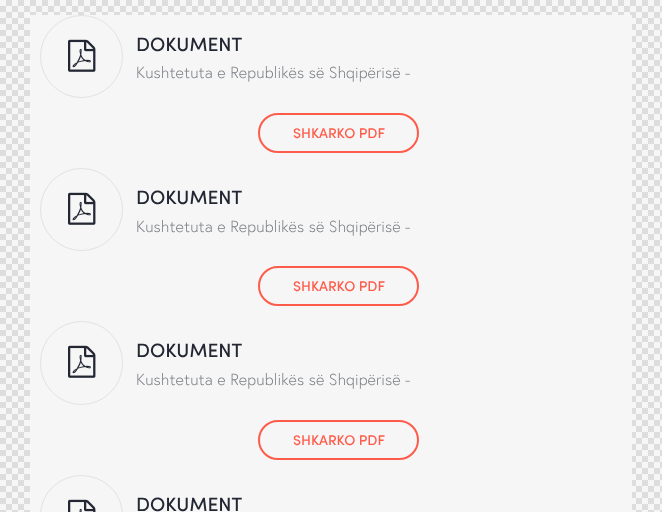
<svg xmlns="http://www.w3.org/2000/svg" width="662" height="512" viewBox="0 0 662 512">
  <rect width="100%" height="100%" fill="#ffffff"/>
  <image x="0" y="0" width="662" height="512" href="img1.png"/>
  <rect x="30" y="15" width="602" height="497" fill="#f6f6f6"/>
  <circle cx="81.5" cy="56.5" r="41" fill="none" stroke="#e2e2e2"/>
  <image x="68" y="39" width="28" height="33" href="img2.png"/>
  <text x="136" y="51" font-family="Sofia" font-size="19.25" font-weight="500" fill="#222733">DOKUMENT</text>
  <text x="136" y="78" font-family="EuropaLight" font-size="16" font-weight="300" letter-spacing="0.1" fill="#7a7e83">Kushtetuta e Republikës së Shqipërisë -</text>
  <rect x="259" y="114" width="159" height="38" rx="19" fill="none" stroke="#ff5b4a" stroke-width="2"/>
  <text x="293" y="138" font-family="Sofia" font-size="14" font-weight="500" fill="#ff5b4a">SHKARKO PDF</text>
  <circle cx="81.5" cy="209.5" r="41" fill="none" stroke="#e2e2e2"/>
  <image x="68" y="192" width="28" height="33" href="img2.png"/>
  <text x="136" y="204" font-family="Sofia" font-size="19.25" font-weight="500" fill="#222733">DOKUMENT</text>
  <text x="136" y="232" font-family="EuropaLight" font-size="16" font-weight="300" letter-spacing="0.1" fill="#7a7e83">Kushtetuta e Republikës së Shqipërisë -</text>
  <rect x="259" y="267" width="159" height="38" rx="19" fill="none" stroke="#ff5b4a" stroke-width="2"/>
  <text x="293" y="291" font-family="Sofia" font-size="14" font-weight="500" fill="#ff5b4a">SHKARKO PDF</text>
  <rect x="40.5" y="321.5" width="82" height="83" rx="41" fill="none" stroke="#e2e2e2"/>
  <image x="68" y="345" width="28" height="33" href="img2.png"/>
  <text x="136" y="357" font-family="Sofia" font-size="19.25" font-weight="500" fill="#222733">DOKUMENT</text>
  <text x="136" y="385" font-family="EuropaLight" font-size="16" font-weight="300" letter-spacing="0.1" fill="#7a7e83">Kushtetuta e Republikës së Shqipërisë -</text>
  <rect x="259" y="421" width="159" height="38" rx="19" fill="none" stroke="#ff5b4a" stroke-width="2"/>
  <text x="293" y="445" font-family="Sofia" font-size="14" font-weight="500" fill="#ff5b4a">SHKARKO PDF</text>
  <rect x="40.5" y="475.5" width="82" height="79" rx="41" fill="none" stroke="#e2e2e2"/>
  <image x="68" y="499" width="28" height="13" href="img3.png"/>
  <text x="136" y="511" font-family="Sofia" font-size="19.25" font-weight="500" fill="#222733">DOKUMENT</text>
</svg>
